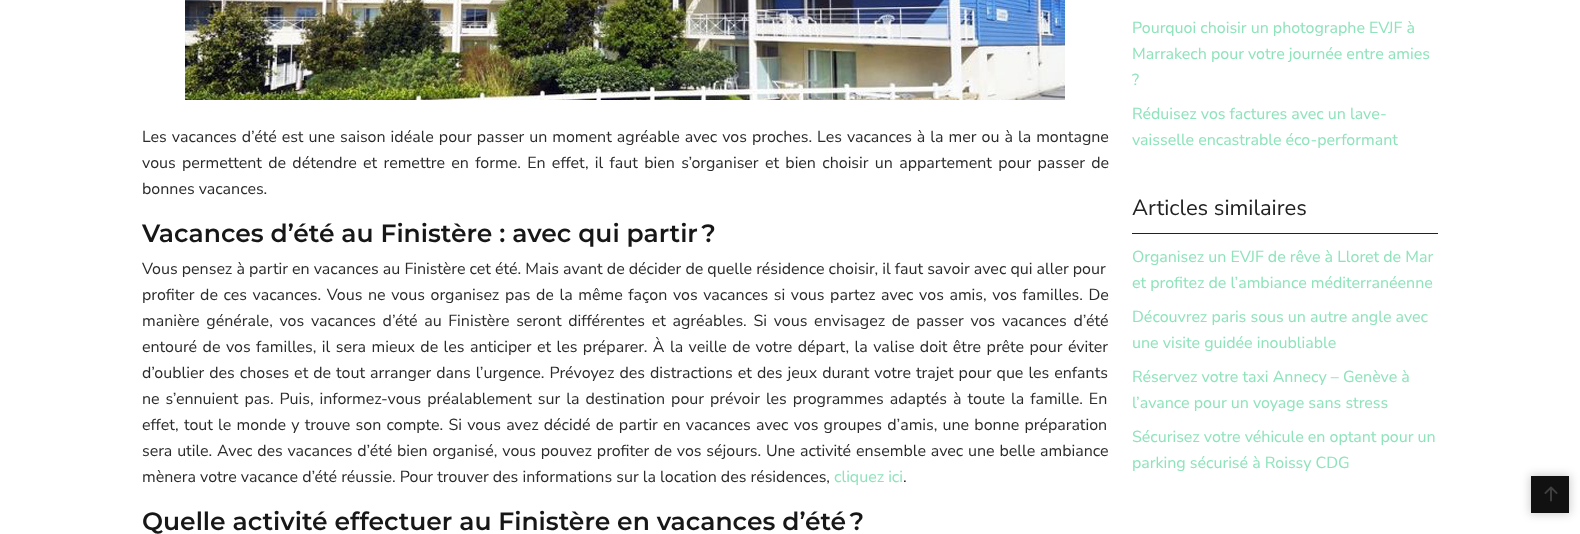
<svg xmlns="http://www.w3.org/2000/svg" width="1580" height="534" viewBox="0 0 1580 534">
  <defs>
    <filter id="blur1" x="-50%" y="-200%" width="200%" height="500%"><feGaussianBlur stdDeviation="5"/></filter>
  </defs>
  <rect width="100%" height="100%" fill="#ffffff"/>
  <image x="185" y="0" width="880" height="100" href="img1.png"/>
  <text x="142" y="142" word-spacing="0.9" font-family="Nunito Sans" font-size="16" fill="#2b2b2b">Les vacances d’été est une saison idéale pour passer un moment agréable avec vos proches. Les vacances à la mer ou à la montagne</text>
  <text x="142" y="168" word-spacing="2.2" font-family="Nunito Sans" font-size="16" fill="#2b2b2b">vous permettent de détendre et remettre en forme. En effet, il faut bien s’organiser et bien choisir un appartement pour passer de</text>
  <text x="142" y="194" font-family="Nunito Sans" font-size="16" fill="#2b2b2b">bonnes vacances.</text>
  <text x="142" y="242" font-family="Montserrat" font-size="25" font-weight="600" fill="#171717">Vacances d’été au Finistère : avec qui partir ?</text>
  <text x="142" y="274" font-family="Nunito Sans" font-size="16" fill="#2b2b2b">Vous pensez à partir en vacances au Finistère cet été. Mais avant de décider de quelle résidence choisir, il faut savoir avec qui aller pour</text>
  <text x="142" y="300" word-spacing="1.5" font-family="Nunito Sans" font-size="16" fill="#2b2b2b">profiter de ces vacances. Vous ne vous organisez pas de la même façon vos vacances si vous partez avec vos amis, vos familles. De</text>
  <text x="142" y="326" word-spacing="2.6" font-family="Nunito Sans" font-size="16" fill="#2b2b2b">manière générale, vos vacances d’été au Finistère seront différentes et agréables. Si vous envisagez de passer vos vacances d’été</text>
  <text x="142" y="352" word-spacing="1.35" font-family="Nunito Sans" font-size="16" fill="#2b2b2b">entouré de vos familles, il sera mieux de les anticiper et les préparer. À la veille de votre départ, la valise doit être prête pour éviter</text>
  <text x="142" y="378" word-spacing="0.9" font-family="Nunito Sans" font-size="16" fill="#2b2b2b">d’oublier des choses et de tout arranger dans l’urgence. Prévoyez des distractions et des jeux durant votre trajet pour que les enfants</text>
  <text x="142" y="404" word-spacing="1.9" font-family="Nunito Sans" font-size="16" fill="#2b2b2b">ne s’ennuient pas. Puis, informez-vous préalablement sur la destination pour prévoir les programmes adaptés à toute la famille. En</text>
  <text x="142" y="430" word-spacing="1.1" font-family="Nunito Sans" font-size="16" fill="#2b2b2b">effet, tout le monde y trouve son compte. Si vous avez décidé de partir en vacances avec vos groupes d’amis, une bonne préparation</text>
  <text x="142" y="456" word-spacing="0.7" font-family="Nunito Sans" font-size="16" fill="#2b2b2b">sera utile. Avec des vacances d’été bien organisé, vous pouvez profiter de vos séjours. Une activité ensemble avec une belle ambiance</text>
  <text x="142" y="482" font-family="Nunito Sans" font-size="16" fill="#2b2b2b">mènera votre vacance d’été réussie. Pour trouver des informations sur la location des résidences,</text>
  <text x="834" y="482" font-family="Nunito Sans" font-size="16" fill="#8ee3bb">cliquez ici</text>
  <text x="903" y="482" font-family="Nunito Sans" font-size="16" fill="#2b2b2b">.</text>
  <text x="142" y="530" font-family="Montserrat" font-size="25" font-weight="600" fill="#171717">Quelle activité effectuer au Finistère en vacances d’été ?</text>
  <text x="1132" y="33" font-family="Nunito Sans" font-size="16" fill="#8ee3bb">Pourquoi choisir un photographe EVJF à</text>
  <text x="1132" y="59" font-family="Nunito Sans" font-size="16" fill="#8ee3bb">Marrakech pour votre journée entre amies</text>
  <text x="1132" y="85" font-family="Nunito Sans" font-size="16" fill="#8ee3bb">?</text>
  <text x="1132" y="119" font-family="Nunito Sans" font-size="16" fill="#8ee3bb">Réduisez vos factures avec un lave-</text>
  <text x="1132" y="145" font-family="Nunito Sans" font-size="16" fill="#8ee3bb">vaisselle encastrable éco-performant</text>
  <rect x="1132" y="233" width="306" height="1" fill="#222222"/>
  <text x="1132" y="215" font-family="Nunito Sans" font-size="22" fill="#222222">Articles similaires</text>
  <text x="1132" y="262" font-family="Nunito Sans" font-size="16" fill="#8ee3bb">Organisez un EVJF de rêve à Lloret de Mar</text>
  <text x="1132" y="288" font-family="Nunito Sans" font-size="16" fill="#8ee3bb">et profitez de l’ambiance méditerranéenne</text>
  <text x="1132" y="322" font-family="Nunito Sans" font-size="16" fill="#8ee3bb">Découvrez paris sous un autre angle avec</text>
  <text x="1132" y="348" font-family="Nunito Sans" font-size="16" fill="#8ee3bb">une visite guidée inoubliable</text>
  <text x="1132" y="382" font-family="Nunito Sans" font-size="16" fill="#8ee3bb">Réservez votre taxi Annecy – Genève à</text>
  <text x="1132" y="408" font-family="Nunito Sans" font-size="16" fill="#8ee3bb">l’avance pour un voyage sans stress</text>
  <text x="1132" y="442" font-family="Nunito Sans" font-size="16" fill="#8ee3bb">Sécurisez votre véhicule en optant pour un</text>
  <text x="1132" y="468" font-family="Nunito Sans" font-size="16" fill="#8ee3bb">parking sécurisé à Roissy CDG</text>
  <rect x="1530" y="475" width="40" height="39" fill="#000000" fill-opacity="0.2" filter="url(#blur1)"/>
  <rect x="1531" y="476" width="38" height="37" fill="#111111"/>
  <image x="1544" y="486" width="14" height="16" href="img2.png"/>
</svg>
